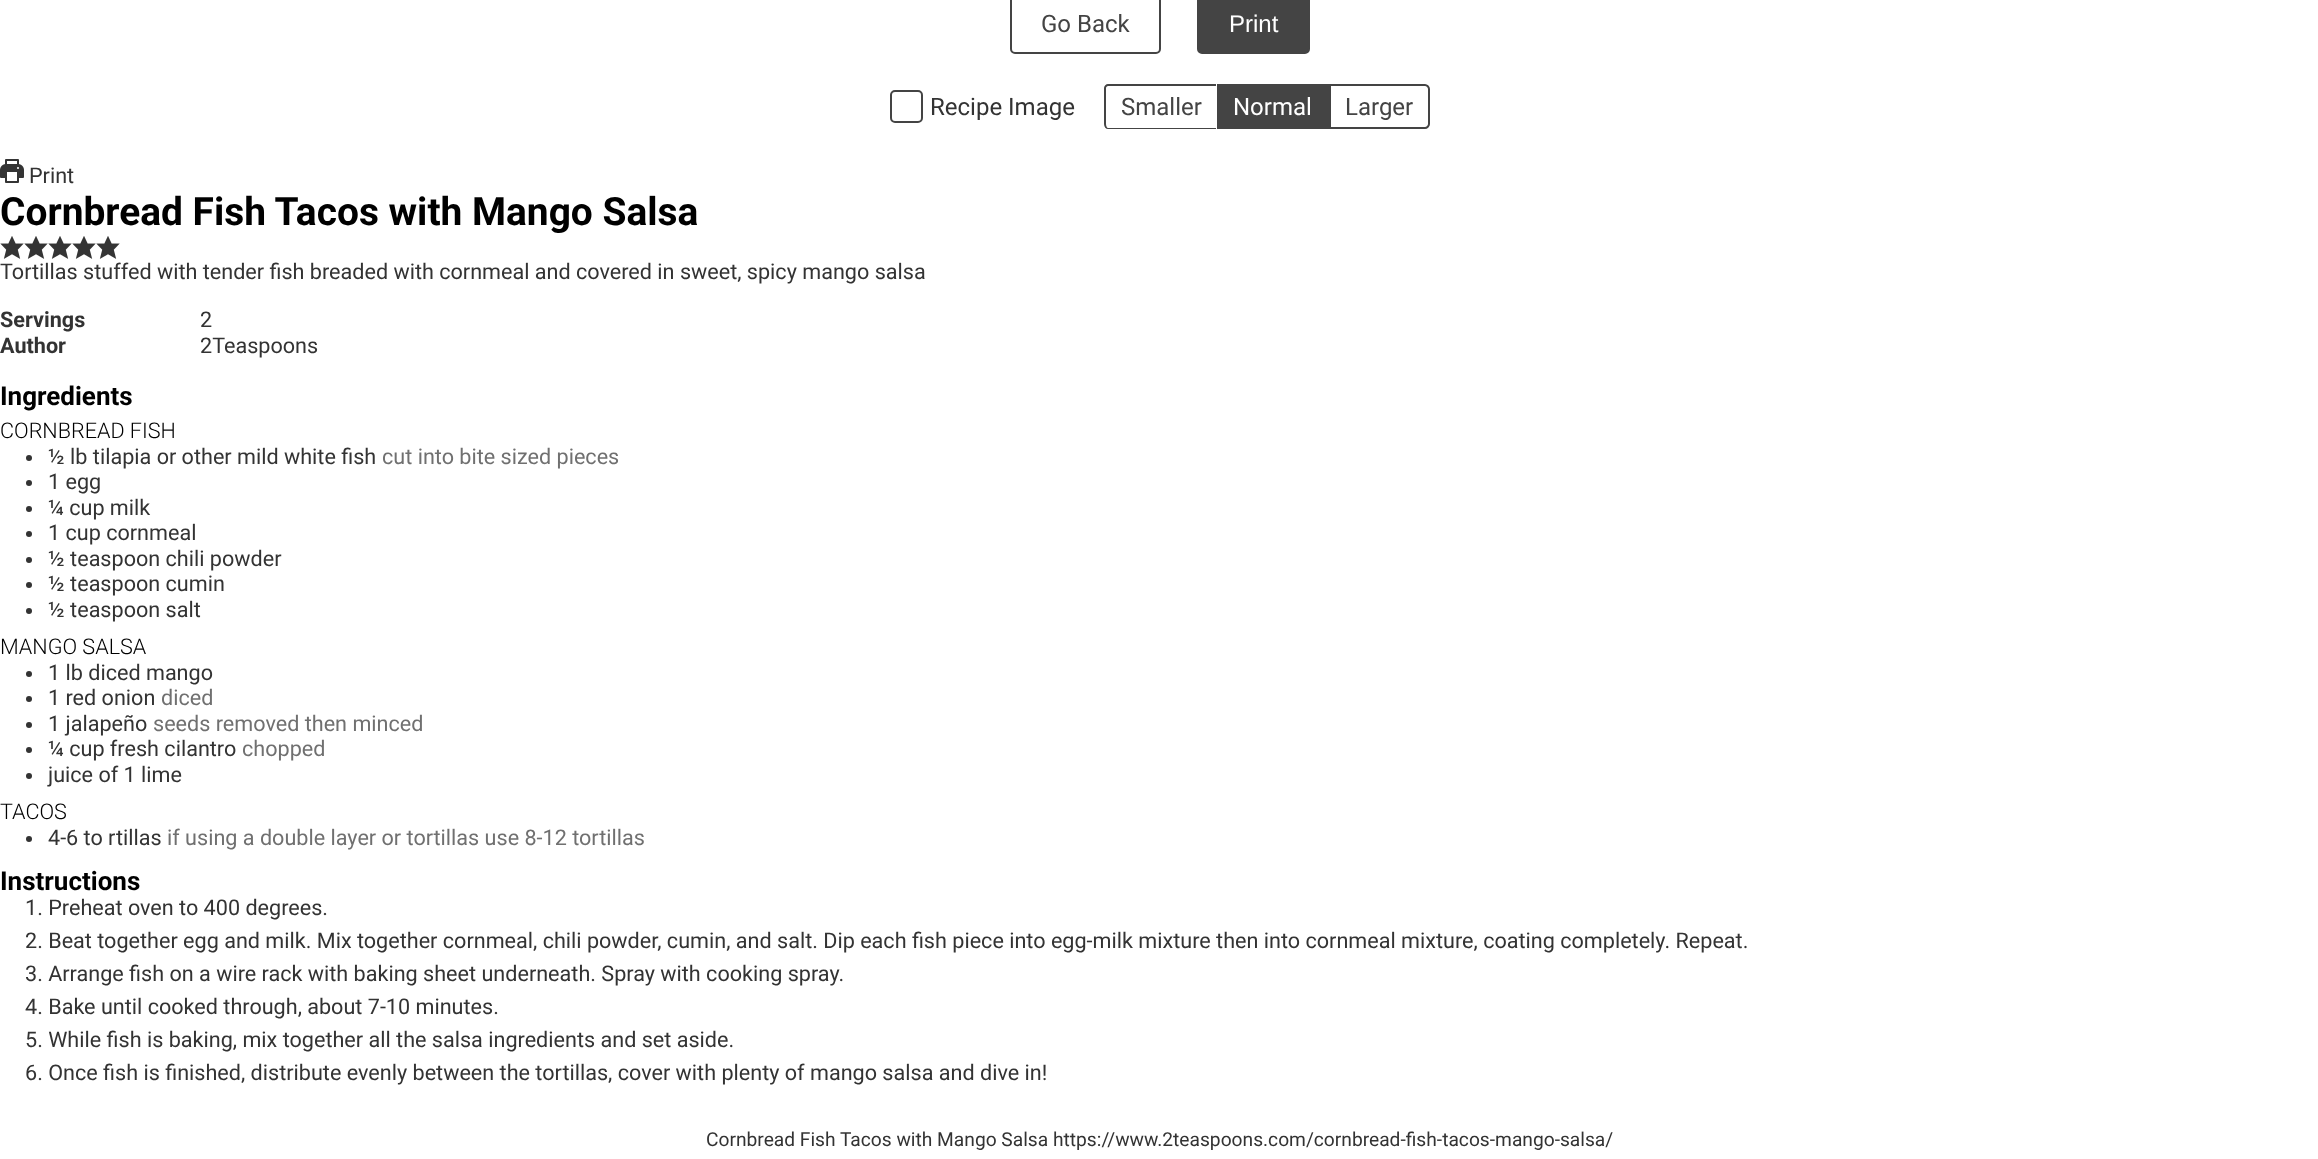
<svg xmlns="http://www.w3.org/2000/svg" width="2318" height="1159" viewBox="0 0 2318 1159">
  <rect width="100%" height="100%" fill="#ffffff"/>
  <rect x="1011" y="-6" width="149" height="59" rx="4" fill="none" stroke="#444444" stroke-width="2"/>
  <text x="1041" y="32" font-family="Roboto" font-size="24" fill="#444444">Go Back</text>
  <rect x="1198" y="-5" width="111" height="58" rx="4" fill="#444444" stroke="#444444" stroke-width="2"/>
  <text x="1229" y="32" font-family="Liberation Sans" font-size="24" fill="#ffffff">Print</text>
  <rect x="891" y="91" width="31" height="31" rx="4" fill="none" stroke="#444444" stroke-width="2"/>
  <text x="930" y="115" font-family="Roboto" font-size="24" fill="#333333">Recipe Image</text>
  <path d="M1108 84H1216V129H1108C1106 129 1104 127 1104 124V88C1104 86 1106 84 1108 84ZM1108 86H1216V128H1108C1107 128 1106 126 1106 124V88C1106 87 1107 86 1108 86Z" fill="#444444" fill-rule="evenodd"/>
  <text x="1121" y="115" font-family="Roboto" font-size="24" fill="#444444">Smaller</text>
  <rect x="1217" y="84" width="112" height="45" fill="#444444"/>
  <text x="1233" y="115" font-family="Roboto" font-size="24" fill="#ffffff">Normal</text>
  <path d="M1330 85H1425C1427 85 1429 87 1429 89V124C1429 126 1427 128 1425 128H1330Z" fill="none" stroke="#444444" stroke-width="2"/>
  <text x="1345" y="115" font-family="Roboto" font-size="24" fill="#444444">Larger</text>
  <image x="0" y="159" width="24" height="24" href="img1.png"/>
  <text x="29" y="183" font-family="Roboto" font-size="21.6" fill="#333333">Print</text>
  <text x="0" y="225" font-family="Roboto" font-size="38.9" font-weight="bold" fill="#000000">Cornbread Fish Tacos with Mango Salsa</text>
  <image x="0" y="236" width="24" height="23" href="img2.png"/>
  <image x="24" y="236" width="24" height="23" href="img2.png"/>
  <image x="48" y="236" width="24" height="23" href="img2.png"/>
  <image x="72" y="236" width="24" height="23" href="img2.png"/>
  <image x="96" y="236" width="24" height="23" href="img2.png"/>
  <text x="0" y="279" font-family="Roboto" font-size="21.6" fill="#333333">Tortillas stuffed with tender fish breaded with cornmeal and covered in sweet, spicy mango salsa</text>
  <text x="0" y="327" font-family="Roboto" font-size="21.6" font-weight="bold" fill="#333333">Servings</text>
  <text x="200" y="327" font-family="Roboto" font-size="21.6" fill="#333333">2</text>
  <text x="0" y="353" font-family="Roboto" font-size="21.6" font-weight="bold" fill="#333333">Author</text>
  <text x="200" y="353" font-family="Roboto" font-size="21.6" fill="#333333">2Teaspoons</text>
  <text x="0" y="405" font-family="Roboto" font-size="26" font-weight="bold" fill="#000000">Ingredients</text>
  <text x="0" y="438" font-family="Roboto" font-size="21.6" font-weight="300" fill="#000000">CORNBREAD FISH</text>
  <circle cx="29" cy="458" r="3" fill="#333333"/>
  <text x="48" y="464" font-family="Roboto" font-size="21.6" fill="#333333">½ lb tilapia or other mild white fish</text>
  <text x="382" y="464" font-family="Roboto" font-size="21.6" fill="#707070">cut into bite sized pieces</text>
  <circle cx="29" cy="483" r="3" fill="#333333"/>
  <text x="48" y="489" font-family="Roboto" font-size="21.6" fill="#333333">1 egg</text>
  <circle cx="29" cy="509" r="3" fill="#333333"/>
  <text x="48" y="515" font-family="Roboto" font-size="21.6" fill="#333333">¼ cup milk</text>
  <circle cx="29" cy="534" r="3" fill="#333333"/>
  <text x="48" y="540" font-family="Roboto" font-size="21.6" fill="#333333">1 cup cornmeal</text>
  <circle cx="29" cy="560" r="3" fill="#333333"/>
  <text x="48" y="566" font-family="Roboto" font-size="21.6" fill="#333333">½ teaspoon chili powder</text>
  <circle cx="29" cy="585" r="3" fill="#333333"/>
  <text x="48" y="591" font-family="Roboto" font-size="21.6" fill="#333333">½ teaspoon cumin</text>
  <circle cx="29" cy="611" r="3" fill="#333333"/>
  <text x="48" y="617" font-family="Roboto" font-size="21.6" fill="#333333">½ teaspoon salt</text>
  <text x="0" y="654" font-family="Roboto" font-size="21.6" font-weight="300" fill="#000000">MANGO SALSA</text>
  <circle cx="29" cy="674" r="3" fill="#333333"/>
  <text x="48" y="680" font-family="Roboto" font-size="21.6" fill="#333333">1 lb diced mango</text>
  <circle cx="29" cy="699" r="3" fill="#333333"/>
  <text x="48" y="705" font-family="Roboto" font-size="21.6" fill="#333333">1 red onion</text>
  <text x="161" y="705" font-family="Roboto" font-size="21.6" fill="#707070">diced</text>
  <circle cx="29" cy="725" r="3" fill="#333333"/>
  <text x="48" y="731" font-family="Roboto" font-size="21.6" fill="#333333">1 jalapeño</text>
  <text x="153" y="731" font-family="Roboto" font-size="21.6" fill="#707070">seeds removed then minced</text>
  <circle cx="29" cy="750" r="3" fill="#333333"/>
  <text x="48" y="756" font-family="Roboto" font-size="21.6" fill="#333333">¼ cup fresh cilantro</text>
  <text x="242" y="756" font-family="Roboto" font-size="21.6" fill="#707070">chopped</text>
  <circle cx="29" cy="776" r="3" fill="#333333"/>
  <text x="48" y="782" font-family="Roboto" font-size="21.6" fill="#333333">juice of 1 lime</text>
  <text x="0" y="819" font-family="Roboto" font-size="21.6" font-weight="300" fill="#000000">TACOS</text>
  <circle cx="29" cy="839" r="3" fill="#333333"/>
  <text x="48" y="845" font-family="Roboto" font-size="21.6" fill="#333333">4-6 to rtillas</text>
  <text x="167" y="845" font-family="Roboto" font-size="21.6" fill="#707070">if using a double layer or tortillas use 8-12 tortillas</text>
  <text x="0" y="890" font-family="Roboto" font-size="26" font-weight="bold" fill="#000000">Instructions</text>
  <text x="25" y="915" font-family="Roboto" font-size="21.6" fill="#333333">1. Preheat oven to 400 degrees.</text>
  <text x="25" y="948" font-family="Roboto" font-size="21.6" fill="#333333">2. Beat together egg and milk. Mix together cornmeal, chili powder, cumin, and salt. Dip each fish piece into egg-milk mixture then into cornmeal mixture, coating completely. Repeat.</text>
  <text x="25" y="981" font-family="Roboto" font-size="21.6" fill="#333333">3. Arrange fish on a wire rack with baking sheet underneath. Spray with cooking spray.</text>
  <text x="25" y="1014" font-family="Roboto" font-size="21.6" fill="#333333">4. Bake until cooked through, about 7-10 minutes.</text>
  <text x="25" y="1047" font-family="Roboto" font-size="21.6" fill="#333333">5. While fish is baking, mix together all the salsa ingredients and set aside.</text>
  <text x="25" y="1080" font-family="Roboto" font-size="21.6" fill="#333333">6. Once fish is finished, distribute evenly between the tortillas, cover with plenty of mango salsa and dive in!</text>
  <text x="706" y="1146" font-family="Roboto" font-size="19.2" fill="#333333">Cornbread Fish Tacos with Mango Salsa https://www.2teaspoons.com/cornbread-fish-tacos-mango-salsa/</text>
</svg>
